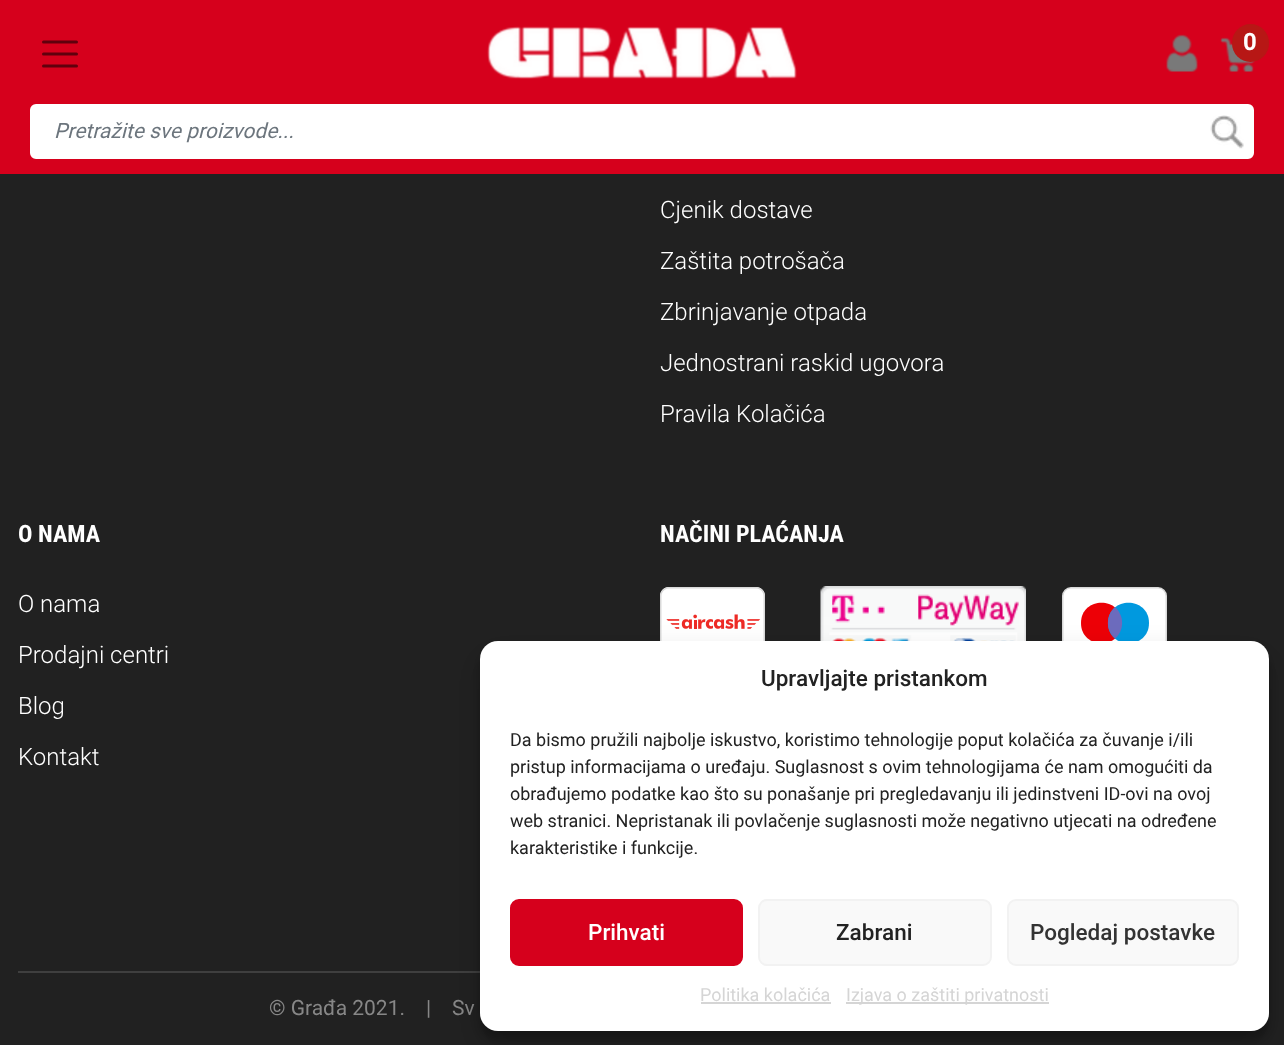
<svg xmlns="http://www.w3.org/2000/svg" width="1284" height="1045" viewBox="0 0 1284 1045">
  <defs>
    <filter id="blur1" x="-50%" y="-200%" width="200%" height="500%"><feGaussianBlur stdDeviation="4.5"/></filter>
    <filter id="blur2" x="-50%" y="-200%" width="200%" height="500%"><feGaussianBlur stdDeviation="15"/></filter>
  </defs>
  <rect width="100%" height="100%" fill="#212121"/>
  <rect x="0" y="0" width="1284" height="174" fill="#d6001c"/>
  <path d="M43.5 42H76.5M43.5 54H76.5M43.5 66H76.5" fill="none" stroke="#60000d" stroke-width="3" stroke-linecap="round"/>
  <image x="487" y="26" width="310" height="53" href="img1.png"/>
  <image x="1166" y="34" width="32" height="38" href="img2.png"/>
  <image x="1220" y="37" width="35" height="35" href="img3.png"/>
  <rect x="1232" y="24" width="37" height="38" rx="18.5" fill="#b71715"/>
  <text x="1243" y="50" font-family="Roboto" font-size="24" font-weight="bold" fill="#ffffff">0</text>
  <rect x="31" y="105" width="1222" height="53" rx="5" fill="#ffffff" stroke="#ffffff" stroke-width="2"/>
  <text x="54" y="138" font-family="Roboto" font-size="21" font-style="italic" fill="#6c757d">Pretražite sve proizvode...</text>
  <image x="1210" y="115" width="34" height="34" href="img4.png"/>
  <text x="660" y="218" font-family="Roboto" font-size="24" font-weight="300" fill="#ffffff">Cjenik dostave</text>
  <text x="660" y="269" font-family="Roboto" font-size="24" font-weight="300" fill="#ffffff">Zaštita potrošača</text>
  <text x="660" y="320" font-family="Roboto" font-size="24" font-weight="300" fill="#ffffff">Zbrinjavanje otpada</text>
  <text x="660" y="371" font-family="Roboto" font-size="24" font-weight="300" fill="#ffffff">Jednostrani raskid ugovora</text>
  <text x="660" y="422" font-family="Roboto" font-size="24" font-weight="300" fill="#ffffff">Pravila Kolačića</text>
  <text x="18" y="542" font-family="Roboto Condensed" font-size="24" font-weight="bold" fill="#ffffff">O NAMA</text>
  <text x="18" y="612" font-family="Roboto" font-size="24" font-weight="300" fill="#ffffff">O nama</text>
  <text x="18" y="663" font-family="Roboto" font-size="24" font-weight="300" fill="#ffffff">Prodajni centri</text>
  <text x="18" y="714" font-family="Roboto" font-size="24" font-weight="300" fill="#ffffff">Blog</text>
  <text x="18" y="765" font-family="Roboto" font-size="24" font-weight="300" fill="#ffffff">Kontakt</text>
  <text x="660" y="542" font-family="Roboto Condensed" font-size="24" font-weight="bold" fill="#ffffff">NAČINI PLAĆANJA</text>
  <image x="660" y="587" width="105" height="54" href="img5.png"/>
  <image x="820" y="586" width="206" height="55" href="img6.png"/>
  <rect x="1062.75" y="587.75" width="103.5" height="70.5" rx="8.25" fill="#ffffff" stroke="#d9d9d9" stroke-width="1.5"/>
  <path d="M1122 623C1122 650 1081 650 1081 623C1081 596 1122 596 1122 623Z" fill="#ed0006"/>
  <path d="M1149 623C1149 650 1108 650 1108 623C1108 596 1149 596 1149 623Z" fill="#0099df"/>
  <path d="M1115 607C1124.5 615.5 1124.5 630.5 1115 638.5C1105.5 630.5 1105.5 615.5 1115 607Z" fill="#6c6bbd" fill-rule="evenodd"/>
  <rect x="18" y="971" width="462" height="2" fill="#3f3f3f"/>
  <text x="269" y="1015" font-family="Roboto" font-size="21" fill="#878787">© Građa 2021.</text>
  <text x="426" y="1015" font-family="Roboto" font-size="21" fill="#878787">|</text>
  <text x="452" y="1015" font-family="Roboto" font-size="21" fill="#878787">Sv</text>
  <rect x="480" y="650" width="789" height="390" rx="18" fill="#000000" fill-opacity="0.23" filter="url(#blur1)"/>
  <rect x="480" y="656" width="789" height="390" rx="18" fill="#000000" fill-opacity="0.19" filter="url(#blur2)"/>
  <rect x="480" y="641" width="789" height="390" rx="18" fill="#ffffff"/>
  <text x="761" y="686" font-family="Roboto" font-size="22.5" font-weight="500" fill="#222222">Upravljajte pristankom</text>
  <text x="510" y="746" font-family="Roboto" font-size="18" fill="#222222">Da bismo pružili najbolje iskustvo, koristimo tehnologije poput kolačića za čuvanje i/ili</text>
  <text x="510" y="773" font-family="Roboto" font-size="18" fill="#222222">pristup informacijama o uređaju. Suglasnost s ovim tehnologijama će nam omogućiti da</text>
  <text x="510" y="800" font-family="Roboto" font-size="18" fill="#222222">obrađujemo podatke kao što su ponašanje pri pregledavanju ili jedinstveni ID-ovi na ovoj</text>
  <text x="510" y="827" font-family="Roboto" font-size="18" fill="#222222">web stranici. Nepristanak ili povlačenje suglasnosti može negativno utjecati na određene</text>
  <text x="510" y="854" font-family="Roboto" font-size="18" fill="#222222">karakteristike i funkcije.</text>
  <rect x="511" y="900" width="231" height="65" rx="8" fill="#d6001c" stroke="#d6001c" stroke-width="2"/>
  <text x="588" y="940" font-family="Roboto" font-size="22.5" font-weight="500" fill="#ffffff">Prihvati</text>
  <rect x="759" y="900" width="232" height="65" rx="8" fill="#f9f9f9" stroke="#f2f2f2" stroke-width="2"/>
  <text x="836" y="940" font-family="Roboto" font-size="22.5" font-weight="500" fill="#222222">Zabrani</text>
  <rect x="1008" y="900" width="230" height="65" rx="8" fill="#f9f9f9" stroke="#f2f2f2" stroke-width="2"/>
  <text x="1030" y="940" font-family="Roboto" font-size="22.5" font-weight="500" fill="#333333">Pogledaj postavke</text>
  <text x="700" y="1001" font-family="Roboto" font-size="18" fill="#d5d5d5">Politika kolačića</text>
  <rect x="701" y="1002" width="130" height="2" fill="#d5d5d5"/>
  <rect x="846" y="1002" width="203" height="2" fill="#d5d5d5"/>
  <text x="846" y="1001" font-family="Roboto" font-size="18" fill="#d5d5d5">Izjava o zaštiti privatnosti</text>
</svg>
